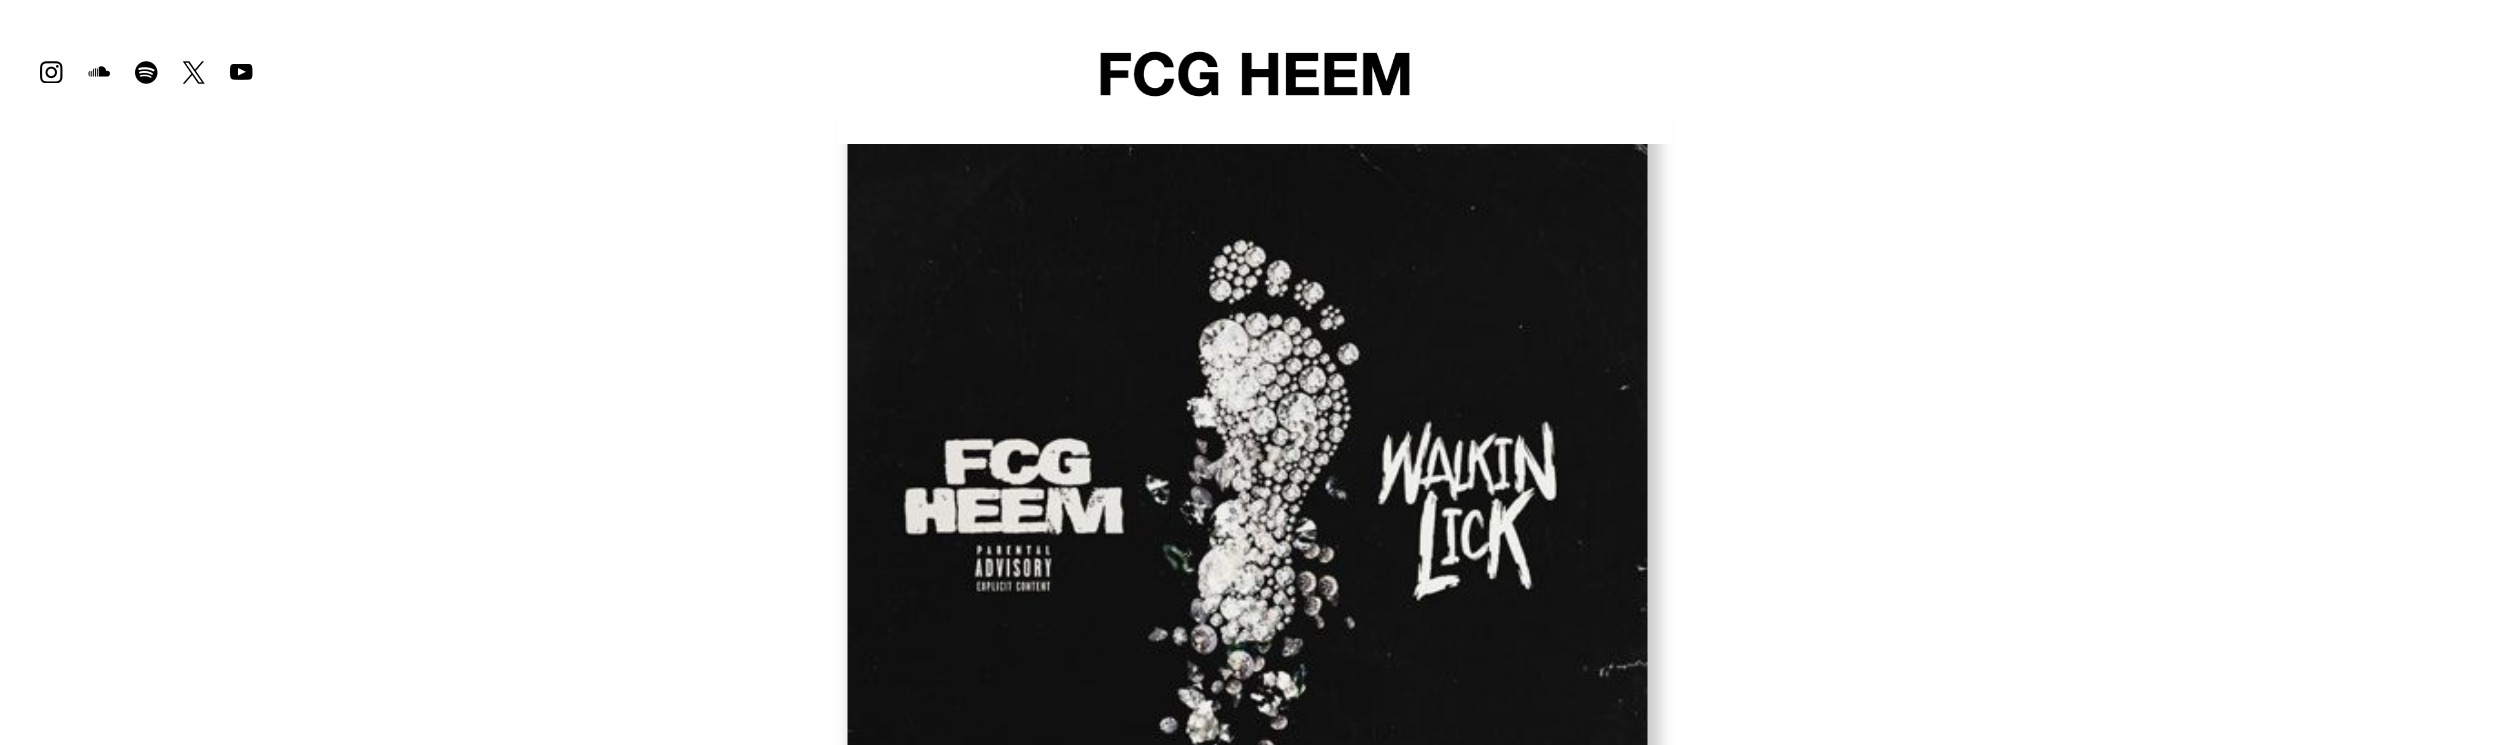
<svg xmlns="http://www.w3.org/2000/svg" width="2494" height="745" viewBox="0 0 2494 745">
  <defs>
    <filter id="blur1" x="-50%" y="-200%" width="200%" height="500%"><feGaussianBlur stdDeviation="7.5"/></filter>
  </defs>
  <rect width="100%" height="100%" fill="#ffffff"/>
  <rect x="850" y="118" width="810" height="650" fill="#000000" fill-opacity="0.2" filter="url(#blur1)"/>
  <rect x="838" y="106" width="834" height="38" fill="#ffffff"/>
  <image x="40" y="61" width="23" height="22" href="img1.png"/>
  <image x="88" y="66" width="22" height="11" href="img2.png"/>
  <image x="135" y="61" width="23" height="23" href="img3.png"/>
  <image x="183" y="61" width="22" height="23" href="img4.png"/>
  <image x="230" y="64" width="23" height="16" href="img5.png"/>
  <image x="1100" y="51" width="310" height="46" href="img6.png"/>
  <image x="847" y="144" width="801" height="601" href="img7.png"/>
</svg>
